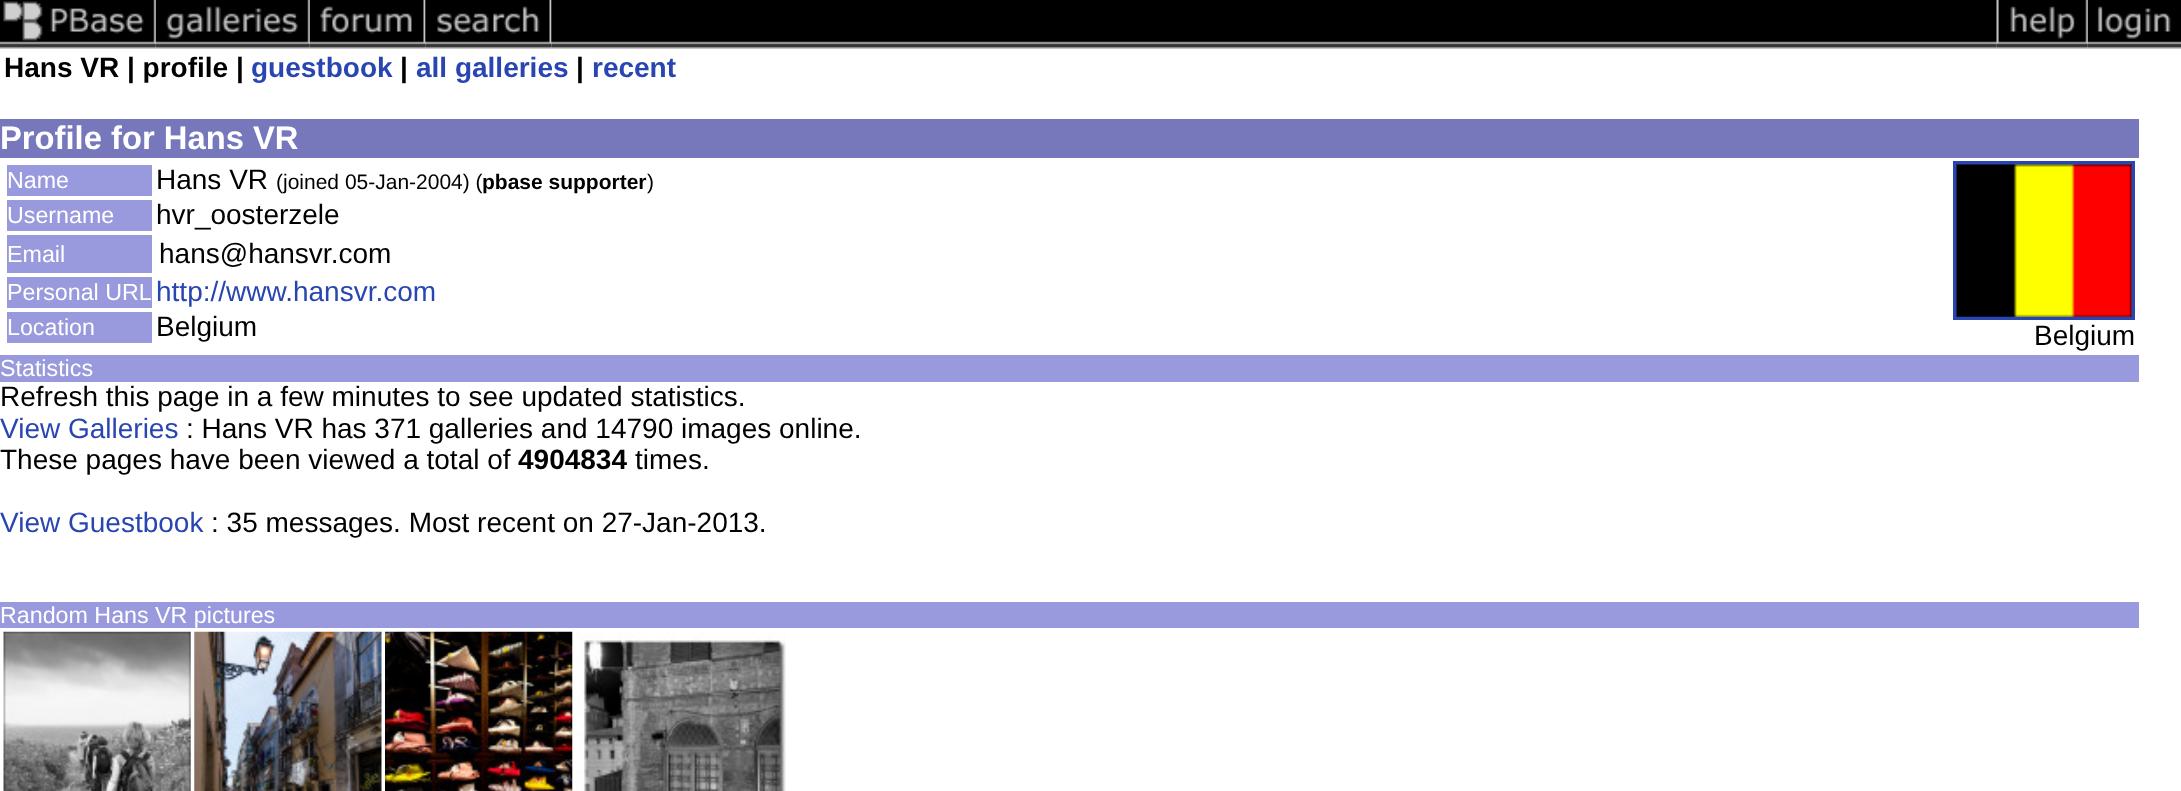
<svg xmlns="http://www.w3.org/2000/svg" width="2181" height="791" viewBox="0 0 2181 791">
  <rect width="100%" height="100%" fill="#ffffff"/>
  <image x="0" y="0" width="156" height="49" href="img1.png"/>
  <image x="155" y="0" width="155" height="49" href="img2.png"/>
  <image x="309" y="0" width="117" height="49" href="img3.png"/>
  <image x="425" y="0" width="127" height="49" href="img4.png"/>
  <image x="551" y="0" width="1446" height="49" href="img5.png"/>
  <image x="1996" y="0" width="92" height="49" href="img6.png"/>
  <image x="2087" y="0" width="94" height="49" href="img7.png"/>
  <text x="4" y="77" font-family="Liberation Sans" font-size="28" font-weight="bold" fill="#000000">Hans VR | profile |</text>
  <text x="251" y="77" font-family="Liberation Sans" font-size="28" font-weight="bold" fill="#2845b1">guestbook</text>
  <text x="400" y="77" font-family="Liberation Sans" font-size="28" font-weight="bold" fill="#000000">|</text>
  <text x="416" y="77" font-family="Liberation Sans" font-size="28" font-weight="bold" fill="#2845b1">all galleries</text>
  <text x="576" y="77" font-family="Liberation Sans" font-size="28" font-weight="bold" fill="#000000">|</text>
  <text x="592" y="77" font-family="Liberation Sans" font-size="28" font-weight="bold" fill="#2845b1">recent</text>
  <rect x="0" y="119" width="2139" height="39" fill="#7777bb"/>
  <text x="0" y="149" font-family="Liberation Sans" font-size="32.75" font-weight="bold" fill="#ffffff">Profile for Hans VR</text>
  <rect x="7" y="165" width="145" height="31" fill="#9999dd"/>
  <text x="7" y="188" font-family="Liberation Sans" font-size="23.25" fill="#ffffff">Name</text>
  <text x="156" y="189" font-family="Liberation Sans" font-size="28" fill="#000000">Hans VR</text>
  <text x="276" y="189" font-family="Liberation Sans" font-size="21" fill="#000000">(joined 05-Jan-2004) (</text>
  <text x="482" y="189" font-family="Liberation Sans" font-size="21" font-weight="bold" fill="#000000">pbase supporter</text>
  <text x="647" y="189" font-family="Liberation Sans" font-size="21" fill="#000000">)</text>
  <rect x="7" y="200" width="145" height="31" fill="#9999dd"/>
  <text x="7" y="223" font-family="Liberation Sans" font-size="23.25" fill="#ffffff">Username</text>
  <text x="156" y="224" font-family="Liberation Sans" font-size="28" fill="#000000">hvr_oosterzele</text>
  <rect x="7" y="235" width="145" height="38" fill="#9999dd"/>
  <text x="7" y="262" font-family="Liberation Sans" font-size="23.25" fill="#ffffff">Email</text>
  <text x="159" y="263" font-family="Liberation Sans" font-size="28" fill="#000000">hans@hansvr.com</text>
  <rect x="7" y="277" width="145" height="31" fill="#9999dd"/>
  <text x="7" y="300" font-family="Liberation Sans" font-size="23.25" fill="#ffffff">Personal URL</text>
  <text x="156" y="301" font-family="Liberation Sans" font-size="28" fill="#2845b1">http://www.hansvr.com</text>
  <rect x="7" y="312" width="145" height="31" fill="#9999dd"/>
  <text x="7" y="335" font-family="Liberation Sans" font-size="23.25" fill="#ffffff">Location</text>
  <text x="156" y="336" font-family="Liberation Sans" font-size="28" fill="#000000">Belgium</text>
  <rect x="1955" y="163" width="178" height="155" fill="none" stroke="#2845b1" stroke-width="4"/>
  <image x="1956" y="164" width="176" height="153" href="img8.png"/>
  <text x="2034" y="345" font-family="Liberation Sans" font-size="28" fill="#000000">Belgium</text>
  <rect x="0" y="355" width="2139" height="27" fill="#9999dd"/>
  <text x="0" y="376" font-family="Liberation Sans" font-size="23.25" fill="#ffffff">Statistics</text>
  <text x="0" y="406" font-family="Liberation Sans" font-size="28" fill="#000000">Refresh this page in a few minutes to see updated statistics.</text>
  <text x="0" y="438" font-family="Liberation Sans" font-size="28" fill="#2845b1">View Galleries</text>
  <text x="186" y="438" font-family="Liberation Sans" font-size="28" fill="#000000">: Hans VR has 371 galleries and 14790 images online.</text>
  <text x="0" y="469" font-family="Liberation Sans" font-size="28" fill="#000000">These pages have been viewed a total of</text>
  <text x="518" y="469" font-family="Liberation Sans" font-size="28" font-weight="bold" fill="#000000">4904834</text>
  <text x="635" y="469" font-family="Liberation Sans" font-size="28" fill="#000000">times.</text>
  <text x="0" y="532" font-family="Liberation Sans" font-size="28" fill="#2845b1">View Guestbook</text>
  <text x="211" y="532" font-family="Liberation Sans" font-size="28" fill="#000000">: 35 messages. Most recent on 27-Jan-2013.</text>
  <rect x="0" y="602" width="2139" height="26" fill="#9999dd"/>
  <text x="0" y="623" font-family="Liberation Sans" font-size="23.25" fill="#ffffff">Random Hans VR pictures</text>
  <image x="3" y="631" width="188" height="160" href="img9.png"/>
  <image x="194" y="631" width="188" height="160" href="img10.png"/>
  <image x="385" y="631" width="188" height="160" href="img11.png"/>
  <image x="576" y="632" width="210" height="159" href="img12.png"/>
</svg>
